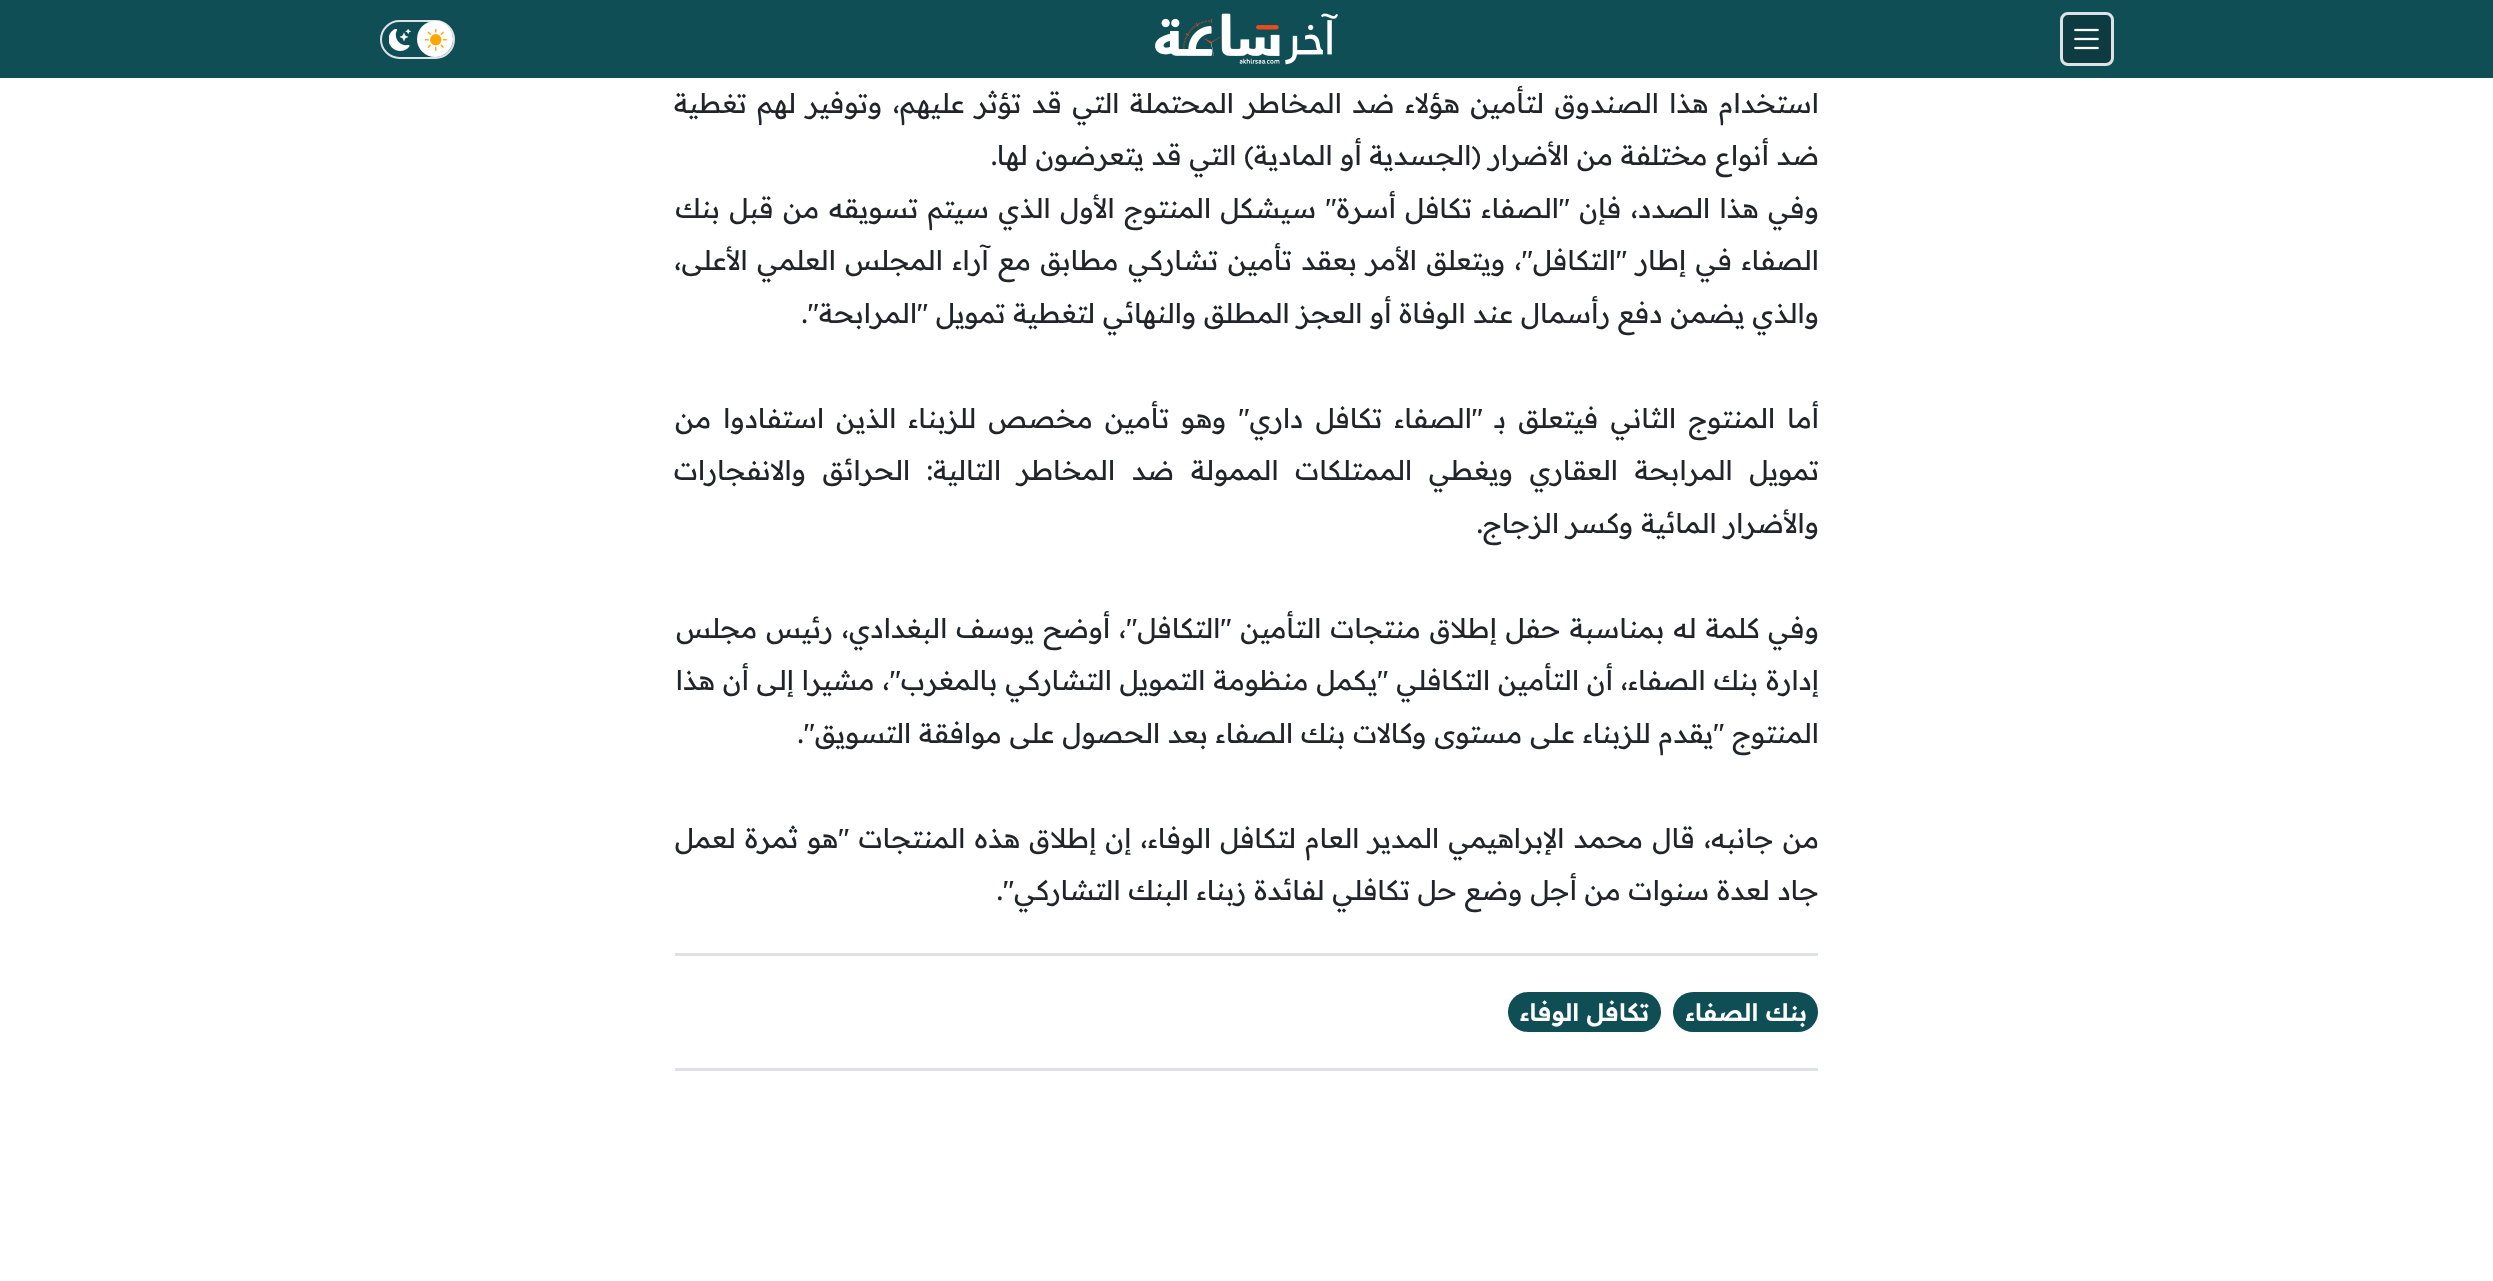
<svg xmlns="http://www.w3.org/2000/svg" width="2493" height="1281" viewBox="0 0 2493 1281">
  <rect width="100%" height="100%" fill="#ffffff"/>
  <rect x="0" y="0" width="2493" height="78" fill="#104e55"/>
  <rect x="2061.5" y="13.5" width="51" height="51" rx="6.5" fill="#0c3b41" stroke="#dee2e6" stroke-width="3"/>
  <image x="2074" y="28" width="25" height="22" href="img1.png"/>
  <image x="1155" y="13" width="183" height="52" href="img2.png"/>
  <rect x="381" y="21" width="73" height="37" rx="18.5" fill="none" stroke="#dee2e6" stroke-width="2"/>
  <circle cx="435" cy="39" r="18" fill="#ffffff"/>
  <image x="425" y="29" width="22" height="22" href="img3.png"/>
  <image x="389" y="29" width="22" height="22" href="img4.png"/>
  <text x="1819" y="113" word-spacing="2.75" font-family="Readex Pro" font-size="27" direction="rtl" fill="#212529">استخدام هذا الصندوق لتأمين هؤلاء ضد المخاطر المحتملة التي قد تؤثر عليهم، وتوفير لهم تغطية</text>
  <text x="1819" y="165" font-family="Readex Pro" font-size="27" direction="rtl" fill="#212529">ضد أنواع مختلفة من الأضرار (الجسدية أو المادية) التي قد يتعرضون لها.</text>
  <text x="1819" y="218" word-spacing="1.75" font-family="Readex Pro" font-size="27" direction="rtl" fill="#212529">وفي هذا الصدد، فإن "الصفاء تكافل أسرة" سيشكل المنتوج الأول الذي سيتم تسويقه من قبل بنك</text>
  <text x="1819" y="270" word-spacing="1.75" font-family="Readex Pro" font-size="27" direction="rtl" fill="#212529">الصفاء في إطار "التكافل"، ويتعلق الأمر بعقد تأمين تشاركي مطابق مع آراء المجلس العلمي الأعلى،</text>
  <text x="1819" y="323" font-family="Readex Pro" font-size="27" direction="rtl" fill="#212529">والذي يضمن دفع رأسمال عند الوفاة أو العجز المطلق والنهائي لتغطية تمويل "المرابحة".</text>
  <text x="1819" y="428" word-spacing="4.4" font-family="Readex Pro" font-size="27" direction="rtl" fill="#212529">أما المنتوج الثاني فيتعلق بـ "الصفاء تكافل داري" وهو تأمين مخصص للزبناء الذين استفادوا من</text>
  <text x="1819" y="480" word-spacing="9" font-family="Readex Pro" font-size="27" direction="rtl" fill="#212529">تمويل المرابحة العقاري ويغطي الممتلكات الممولة ضد المخاطر التالية: الحرائق والانفجارات</text>
  <text x="1819" y="533" font-family="Readex Pro" font-size="27" direction="rtl" fill="#212529">والأضرار المائية وكسر الزجاج.</text>
  <text x="1819" y="638" word-spacing="1.25" font-family="Readex Pro" font-size="27" direction="rtl" fill="#212529">وفي كلمة له بمناسبة حفل إطلاق منتجات التأمين "التكافل"، أوضح يوسف البغدادي، رئيس مجلس</text>
  <text x="1819" y="690" word-spacing="0.3" font-family="Readex Pro" font-size="27" direction="rtl" fill="#212529">إدارة بنك الصفاء، أن التأمين التكافلي "يكمل منظومة التمويل التشاركي بالمغرب"، مشيرا إلى أن هذا</text>
  <text x="1819" y="743" font-family="Readex Pro" font-size="27" direction="rtl" fill="#212529">المنتوج "يقدم للزبناء على مستوى وكالات بنك الصفاء بعد الحصول على موافقة التسويق".</text>
  <text x="1819" y="848" word-spacing="1.5" font-family="Readex Pro" font-size="27" direction="rtl" fill="#212529">من جانبه، قال محمد الإبراهيمي المدير العام لتكافل الوفاء، إن إطلاق هذه المنتجات "هو ثمرة لعمل</text>
  <text x="1819" y="900" font-family="Readex Pro" font-size="27" direction="rtl" fill="#212529">جاد لعدة سنوات من أجل وضع حل تكافلي لفائدة زبناء البنك التشاركي".</text>
  <rect x="675" y="953" width="1143" height="3" fill="#dee2e6"/>
  <rect x="1673" y="992" width="145" height="40" rx="20" fill="#104e55"/>
  <text x="1807" y="1021" font-family="Readex Pro" font-size="24" font-weight="600" direction="rtl" fill="#ffffff">بنك الصفاء</text>
  <rect x="1508" y="992" width="153" height="40" rx="20" fill="#104e55"/>
  <text x="1649" y="1021" font-family="Readex Pro" font-size="24" font-weight="600" direction="rtl" fill="#ffffff">تكافل الوفاء</text>
  <rect x="675" y="1068" width="1143" height="3" fill="#dee2e6"/>
</svg>
